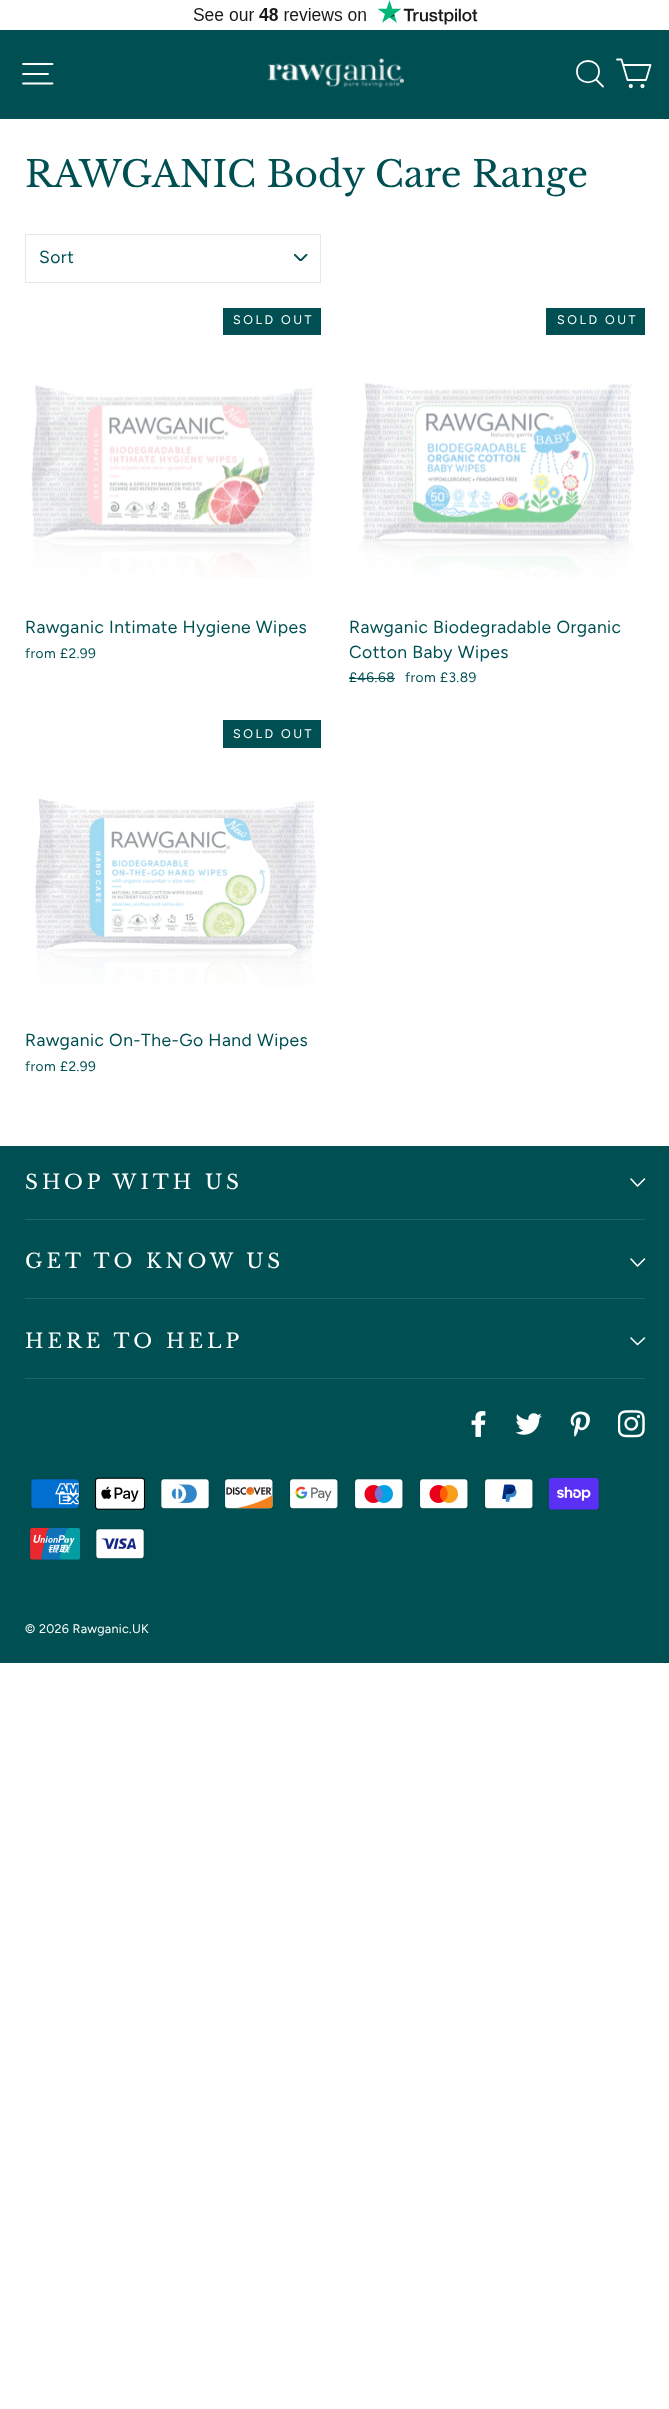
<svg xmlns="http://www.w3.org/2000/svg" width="669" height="2409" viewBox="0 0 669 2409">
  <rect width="100%" height="100%" fill="#ffffff"/>
  <image x="193" y="0" width="285" height="25" href="img1.png"/>
  <rect x="0" y="30" width="669" height="89" fill="#004f52"/>
  <path d="M23 64H52.5M23 74H48M23 83.5H52.5" fill="none" stroke="#ffffff" stroke-width="1.8" stroke-linecap="round" stroke-linejoin="round"/>
  <image x="267" y="58" width="137" height="30" href="img2.png"/>
  <path d="M599 71.5C599 86 577 86 577 71.5C577 57.5 599 57.5 599 71.5ZM603 86.5L596 79.5" fill="none" stroke="#ffffff" stroke-width="1.8" stroke-linecap="round" stroke-linejoin="round"/>
  <path d="M623 65H650.5L646 80H627.5L621.5 59.5H617" fill="none" stroke="#ffffff" stroke-width="1.8" stroke-linecap="round" stroke-linejoin="round"/>
  <circle cx="630.8" cy="86.1" r="1.2" fill="none" stroke="#ffffff" stroke-width="1.8"/>
  <circle cx="642.5" cy="86.1" r="1.2" fill="none" stroke="#ffffff" stroke-width="1.8"/>
  <text x="25" y="187" font-family="Libre Baskerville" font-size="36.25" fill="#004f52">RAWGANIC Body Care Range</text>
  <image x="294" y="254" width="14" height="7" href="img3.png"/>
  <rect x="25.5" y="234.5" width="295" height="48" fill="none" stroke="#e0e9ef"/>
  <text x="39" y="263" font-family="Figtree" font-size="17.5" letter-spacing="0.45" fill="#004f52">Sort</text>
  <rect x="223" y="308" width="98" height="27" fill="#004f52"/>
  <text x="233" y="324" font-family="Figtree" font-size="12.5" letter-spacing="2.5" fill="#ffffff">SOLD OUT</text>
  <image x="31" y="385" width="284" height="193" href="img4.png"/>
  <text x="25" y="633" font-family="Figtree" font-size="17.5" letter-spacing="0.45" fill="#004f52">Rawganic Intimate Hygiene Wipes</text>
  <text x="25" y="658" font-family="Figtree" font-size="13.75" letter-spacing="0.45" fill="#004f52">from £2.99</text>
  <rect x="546" y="308" width="99" height="27" fill="#004f52"/>
  <text x="557" y="324" font-family="Figtree" font-size="12.5" letter-spacing="2.5" fill="#ffffff">SOLD OUT</text>
  <image x="358" y="383" width="277" height="195" href="img5.png"/>
  <text x="349" y="633" font-family="Figtree" font-size="17.5" letter-spacing="0.45" fill="#004f52">Rawganic Biodegradable Organic</text>
  <text x="349" y="658" font-family="Figtree" font-size="17.5" letter-spacing="0.45" fill="#004f52">Cotton Baby Wipes</text>
  <text x="349" y="682" font-family="Figtree" font-size="13.75" letter-spacing="0.45" fill="#004f52">£46.68</text>
  <rect x="349" y="678" width="46" height="1" fill="#004f52"/>
  <text x="405" y="682" font-family="Figtree" font-size="13.75" letter-spacing="0.45" fill="#004f52">from £3.89</text>
  <rect x="223" y="720" width="98" height="28" fill="#004f52"/>
  <text x="233" y="738" font-family="Figtree" font-size="12.5" letter-spacing="2.5" fill="#ffffff">SOLD OUT</text>
  <image x="35" y="798" width="282" height="188" href="img6.png"/>
  <text x="25" y="1046" font-family="Figtree" font-size="17.5" letter-spacing="0.45" fill="#004f52">Rawganic On-The-Go Hand Wipes</text>
  <text x="25" y="1071" font-family="Figtree" font-size="13.75" letter-spacing="0.45" fill="#004f52">from £2.99</text>
  <rect x="0" y="1146" width="669" height="517" fill="#004f52"/>
  <text x="25" y="1189" font-family="Libre Baskerville" font-size="20" letter-spacing="4" fill="#ffffff">SHOP WITH US</text>
  <path d="M631 1179L637.5 1186L644.5 1179" fill="none" stroke="#ffffff" stroke-width="1.6" stroke-linecap="round" stroke-linejoin="round"/>
  <rect x="25" y="1219" width="620" height="1" fill="#1f6467"/>
  <text x="25" y="1268" font-family="Libre Baskerville" font-size="20" letter-spacing="4" fill="#ffffff">GET TO KNOW US</text>
  <path d="M631 1259L637.5 1266L644.5 1259" fill="none" stroke="#ffffff" stroke-width="1.6" stroke-linecap="round" stroke-linejoin="round"/>
  <rect x="25" y="1298" width="620" height="1" fill="#1f6467"/>
  <text x="25" y="1348" font-family="Libre Baskerville" font-size="20" letter-spacing="4" fill="#ffffff">HERE TO HELP</text>
  <path d="M631 1338L637.5 1344.5L644.5 1338" fill="none" stroke="#ffffff" stroke-width="1.6" stroke-linecap="round" stroke-linejoin="round"/>
  <rect x="25" y="1378" width="620" height="1" fill="#1f6467"/>
  <image x="471" y="1411" width="15" height="26" href="img7.png"/>
  <image x="515" y="1413" width="27" height="22" href="img8.png"/>
  <image x="570" y="1411" width="20" height="26" href="img9.png"/>
  <image x="618" y="1410" width="27" height="28" href="img10.png"/>
  <image x="30" y="1478" width="50" height="31" href="img11.png"/>
  <image x="95" y="1477" width="50" height="33" href="img12.png"/>
  <image x="160" y="1478" width="50" height="31" href="img13.png"/>
  <image x="224" y="1478" width="50" height="31" href="img14.png"/>
  <image x="289" y="1478" width="50" height="31" href="img15.png"/>
  <image x="354" y="1478" width="50" height="31" href="img16.png"/>
  <image x="419" y="1478" width="50" height="31" href="img17.png"/>
  <image x="484" y="1478" width="50" height="31" href="img18.png"/>
  <image x="549" y="1477" width="50" height="33" href="img19.png"/>
  <image x="30" y="1527" width="50" height="33" href="img20.png"/>
  <image x="95" y="1528" width="50" height="31" href="img21.png"/>
  <text x="25" y="1633" font-family="Figtree" font-size="12.5" letter-spacing="0.3" fill="#ffffff">© 2026 Rawganic.UK</text>
</svg>
